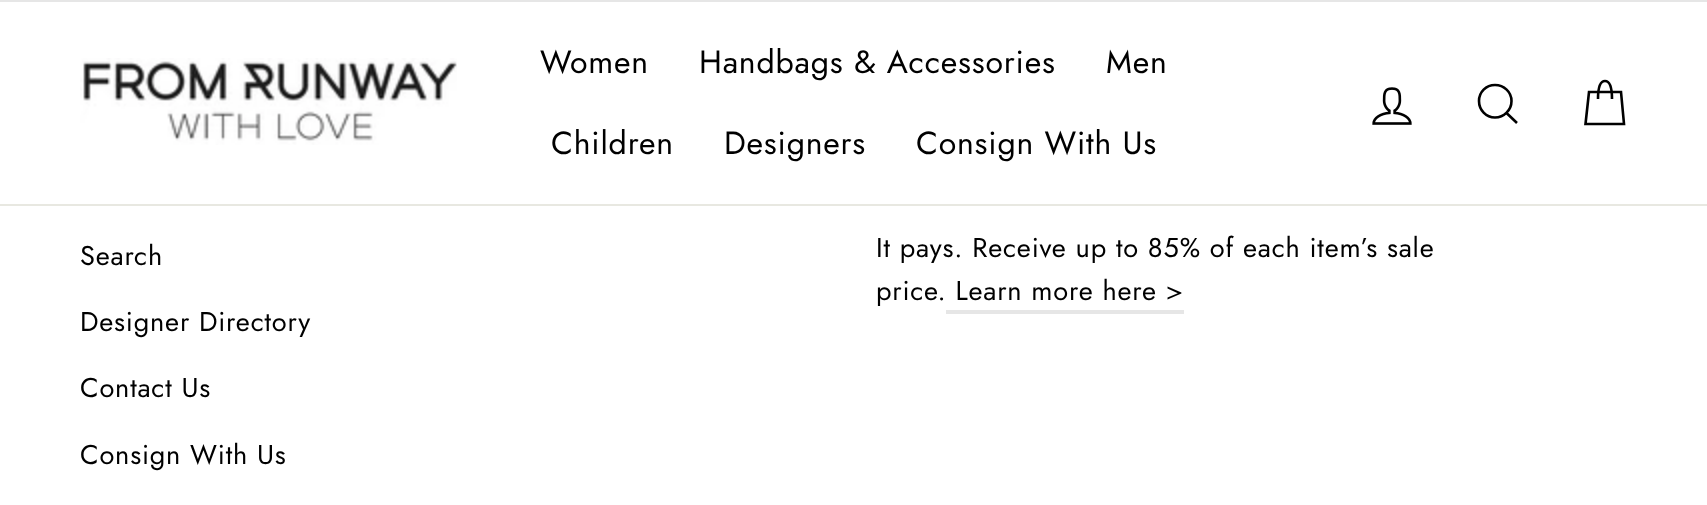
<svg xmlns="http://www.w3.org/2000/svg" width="1707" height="505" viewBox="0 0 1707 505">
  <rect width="100%" height="100%" fill="#ffffff"/>
  <rect x="0" y="0" width="1707" height="2" fill="#e6e6e6"/>
  <rect x="0" y="204" width="1707" height="2" fill="#e8e8e1"/>
  <image x="80" y="58" width="377" height="87" href="img1.png"/>
  <text x="540" y="73" font-family="Jost" font-size="32" letter-spacing="0.8" fill="#000000">Women</text>
  <text x="699" y="73" font-family="Jost" font-size="32" letter-spacing="0.8" fill="#000000">Handbags &amp; Accessories</text>
  <text x="1106" y="73" font-family="Jost" font-size="32" letter-spacing="0.8" fill="#000000">Men</text>
  <text x="551" y="154" font-family="Jost" font-size="32" letter-spacing="0.8" fill="#000000">Children</text>
  <text x="724" y="154" font-family="Jost" font-size="32" letter-spacing="0.8" fill="#000000">Designers</text>
  <text x="916" y="154" font-family="Jost" font-size="32" letter-spacing="0.8" fill="#000000">Consign With Us</text>
  <image x="1372" y="87" width="40" height="38" href="img2.png"/>
  <path d="M1511.5 101C1511.5 110 1504 117.5 1495 117.5C1486 117.5 1479 110 1479 101C1479 92 1486 85 1495 85C1504 85 1511.5 92 1511.5 101ZM1517 123L1506.5 113" fill="none" stroke="#000000" stroke-width="2.6"/>
  <path d="M1598 99C1598 85 1601 81 1605 81C1609 81 1612 85 1612 99M1589 92H1621L1624 124H1585.5Z" fill="none" stroke="#000000" stroke-width="2.6"/>
  <text x="80" y="265" font-family="Jost" font-size="27.2" letter-spacing="0.8" fill="#000000">Search</text>
  <text x="80" y="331" font-family="Jost" font-size="27.2" letter-spacing="0.8" fill="#000000">Designer Directory</text>
  <text x="80" y="397" font-family="Jost" font-size="27.2" letter-spacing="0.8" fill="#000000">Contact Us</text>
  <text x="80" y="464" font-family="Jost" font-size="27.2" letter-spacing="0.8" fill="#000000">Consign With Us</text>
  <text x="876" y="257" font-family="Jost" font-size="27.2" letter-spacing="0.8" fill="#000000">It pays. Receive up to 85% of each item’s sale</text>
  <text x="876" y="300" font-family="Jost" font-size="27.2" letter-spacing="0.8" fill="#000000">price. Learn more here &gt;</text>
  <rect x="946" y="310" width="238" height="4" fill="#e6e6e6"/>
</svg>
